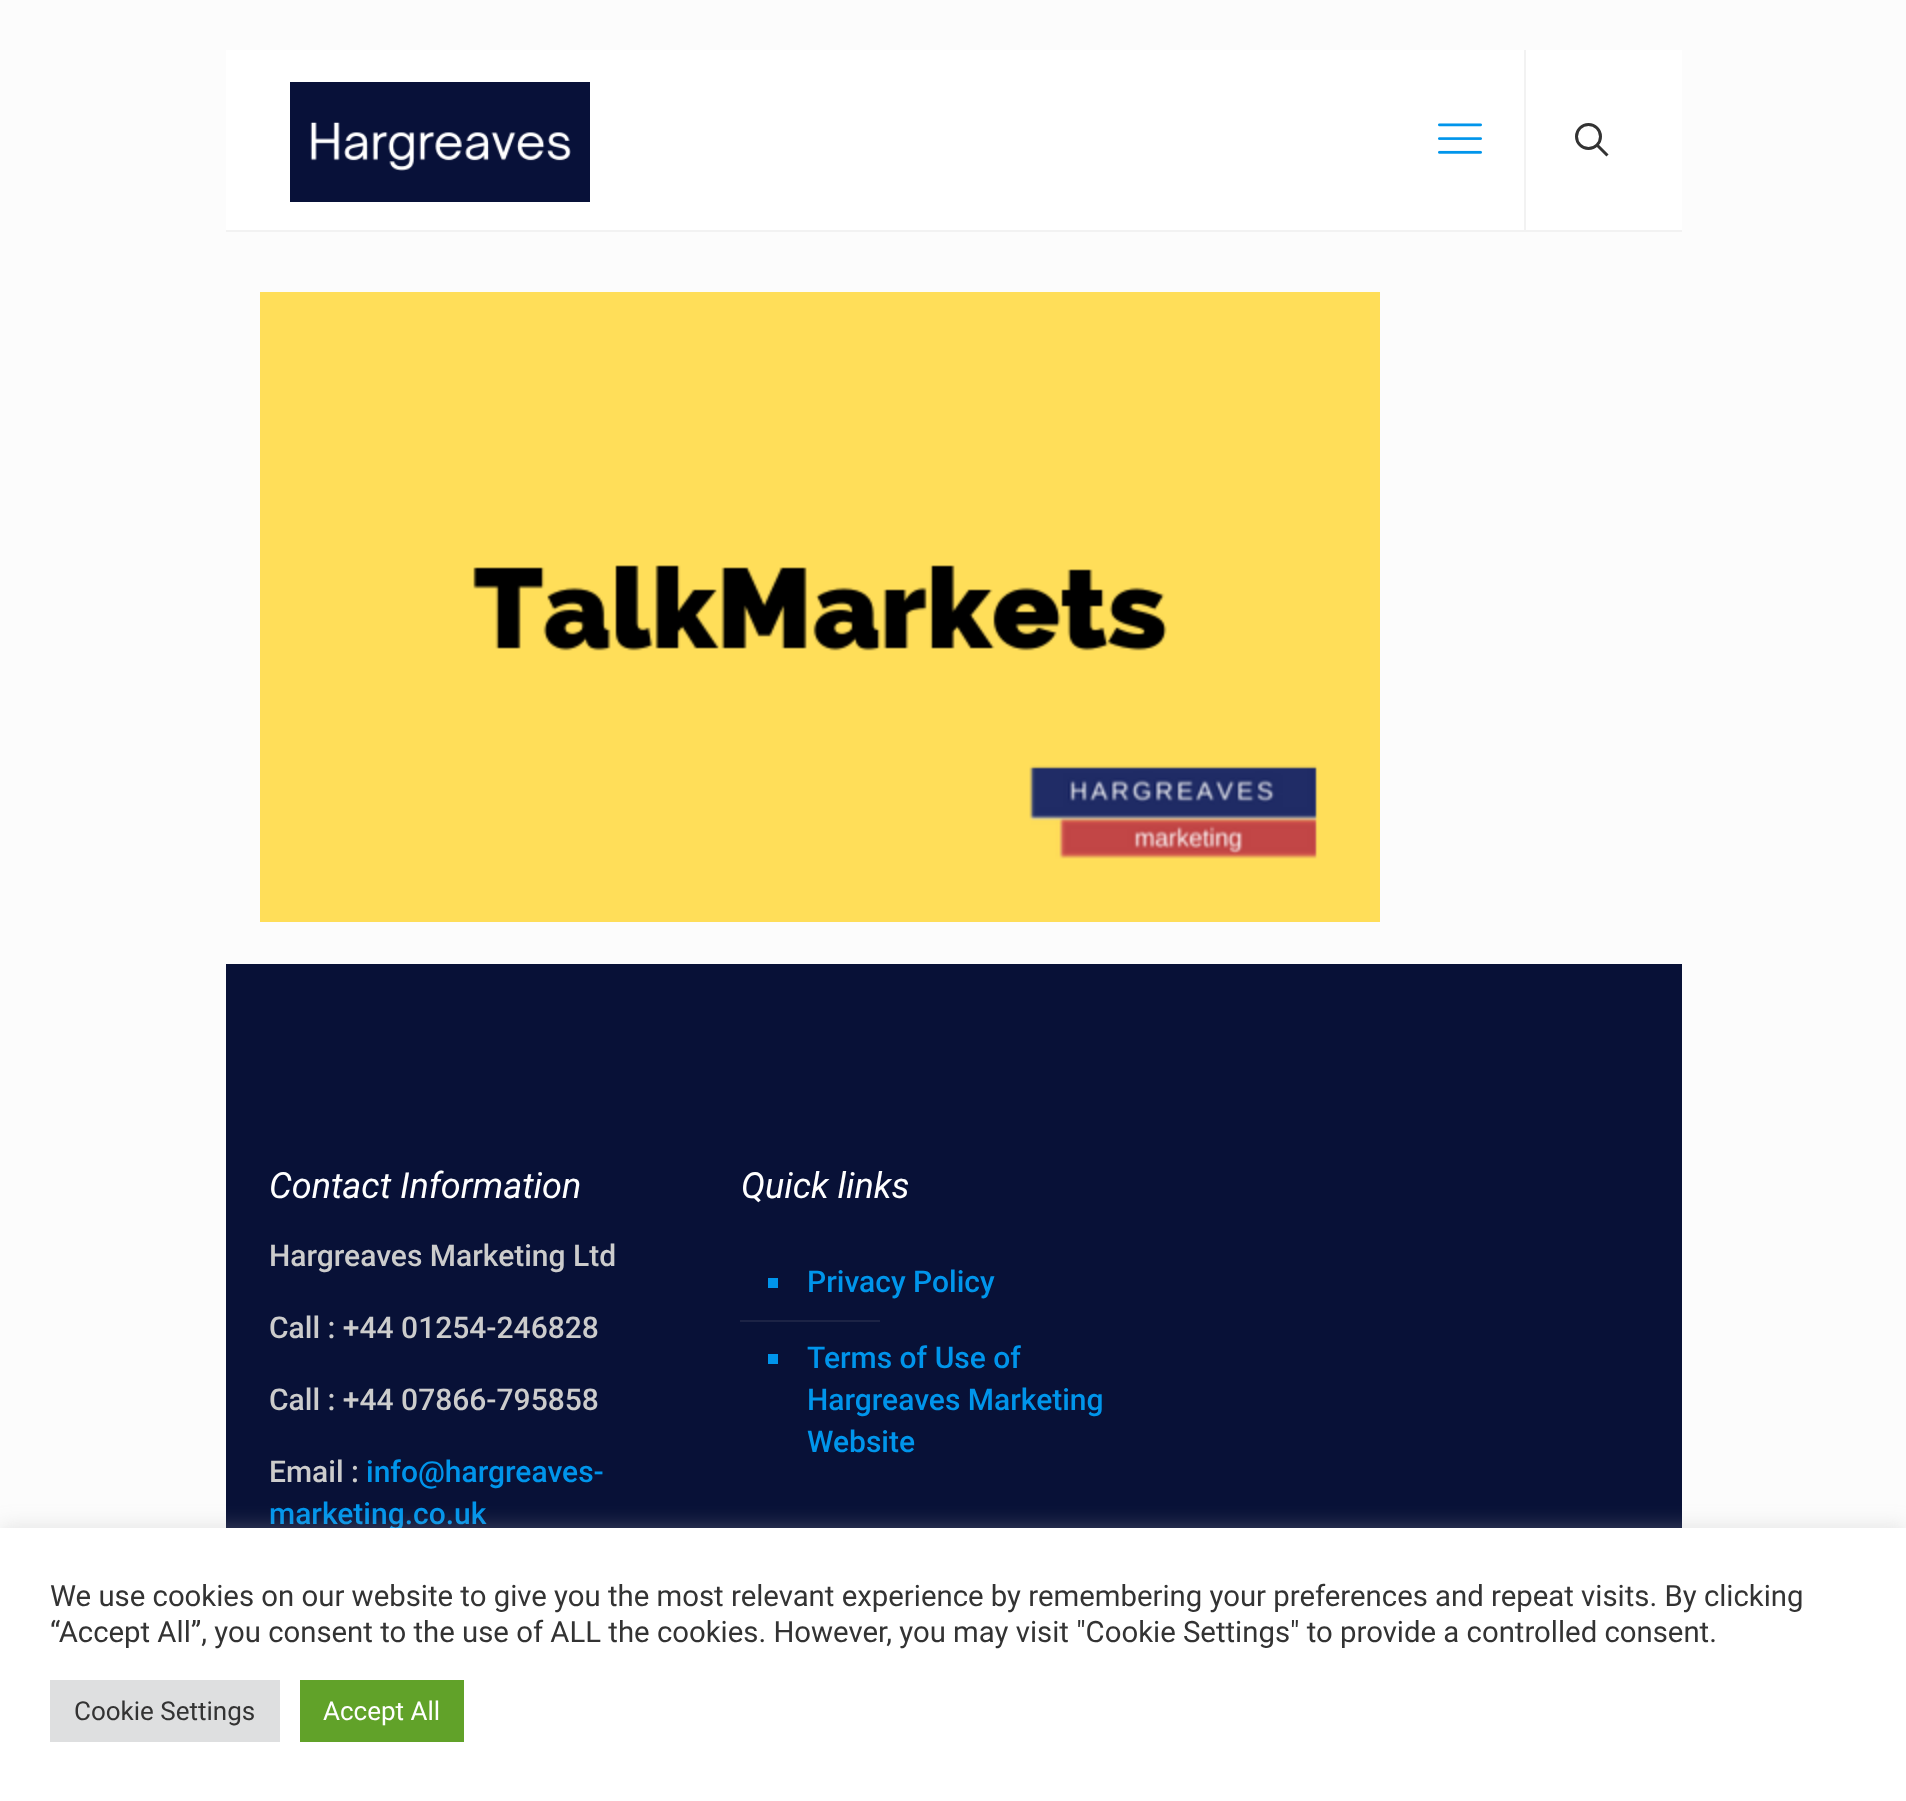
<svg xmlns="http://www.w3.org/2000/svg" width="1906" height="1801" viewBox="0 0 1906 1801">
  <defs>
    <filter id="blur1" x="-50%" y="-200%" width="200%" height="500%"><feGaussianBlur stdDeviation="10"/></filter>
  </defs>
  <rect width="100%" height="100%" fill="#fcfcfc"/>
  <rect x="226" y="50" width="1456" height="180" fill="#ffffff"/>
  <rect x="226" y="230" width="1456" height="2" fill="#f2f2f2"/>
  <image x="290" y="82" width="300" height="120" href="img1.png"/>
  <image x="1438" y="123" width="44" height="31" href="img2.png"/>
  <rect x="1524" y="50" width="2" height="180" fill="#f2f2f2"/>
  <circle cx="1588.5" cy="136.5" r="12" fill="none" stroke="#333333" stroke-width="3"/>
  <path d="M1597 145L1607.5 155.5" fill="none" stroke="#333333" stroke-width="3"/>
  <image x="260" y="292" width="1120" height="630" href="img3.png"/>
  <rect x="226" y="964" width="1456" height="564" fill="#081137"/>
  <text x="269" y="1198" font-family="Roboto" font-size="36" font-style="italic" fill="#ffffff">Contact Information</text>
  <text x="269" y="1266" font-family="Roboto" font-size="30" font-weight="500" fill="#cccccc">Hargreaves Marketing Ltd</text>
  <text x="269" y="1338" font-family="Roboto" font-size="30" font-weight="500" fill="#cccccc">Call : +44 01254-246828</text>
  <text x="269" y="1410" font-family="Roboto" font-size="30" font-weight="500" fill="#cccccc">Call : +44 07866-795858</text>
  <text x="269" y="1482" font-family="Roboto" font-size="30" font-weight="500" fill="#cccccc">Email :</text>
  <text x="366" y="1482" font-family="Roboto" font-size="30" font-weight="500" fill="#0095eb">info@hargreaves-</text>
  <text x="269" y="1524" font-family="Roboto" font-size="30" font-weight="500" fill="#0095eb">marketing.co.uk</text>
  <text x="741" y="1198" font-family="Roboto" font-size="36" font-style="italic" fill="#ffffff">Quick links</text>
  <rect x="768" y="1278" width="10" height="10" fill="#0095eb"/>
  <text x="807" y="1292" font-family="Roboto" font-size="30" font-weight="500" fill="#0095eb">Privacy Policy</text>
  <rect x="740" y="1320" width="140" height="2" fill="#1c2345"/>
  <rect x="768" y="1354" width="10" height="10" fill="#0095eb"/>
  <text x="807" y="1368" font-family="Roboto" font-size="30" font-weight="500" fill="#0095eb">Terms of Use of</text>
  <text x="807" y="1410" font-family="Roboto" font-size="30" font-weight="500" fill="#0095eb">Hargreaves Marketing</text>
  <text x="807" y="1452" font-family="Roboto" font-size="30" font-weight="500" fill="#0095eb">Website</text>
  <rect x="0" y="1526" width="1906" height="274" fill="#acabab" fill-opacity="0.3" filter="url(#blur1)"/>
  <rect x="0" y="1528" width="1906" height="273" fill="#ffffff"/>
  <text x="50" y="1606" font-family="Roboto" font-size="29.33" fill="#333333">We use cookies on our website to give you the most relevant experience by remembering your preferences and repeat visits. By clicking</text>
  <text x="50" y="1642" font-family="Roboto" font-size="29.33" fill="#333333">“Accept All”, you consent to the use of ALL the cookies. However, you may visit "Cookie Settings" to provide a controlled consent.</text>
  <rect x="50" y="1680" width="230" height="62" fill="#dedfe0"/>
  <text x="74" y="1720" font-family="Roboto" font-size="26" fill="#333333">Cookie Settings</text>
  <rect x="300" y="1680" width="164" height="62" fill="#61a229"/>
  <text x="323" y="1720" font-family="Roboto" font-size="26" fill="#ffffff">Accept All</text>
</svg>
